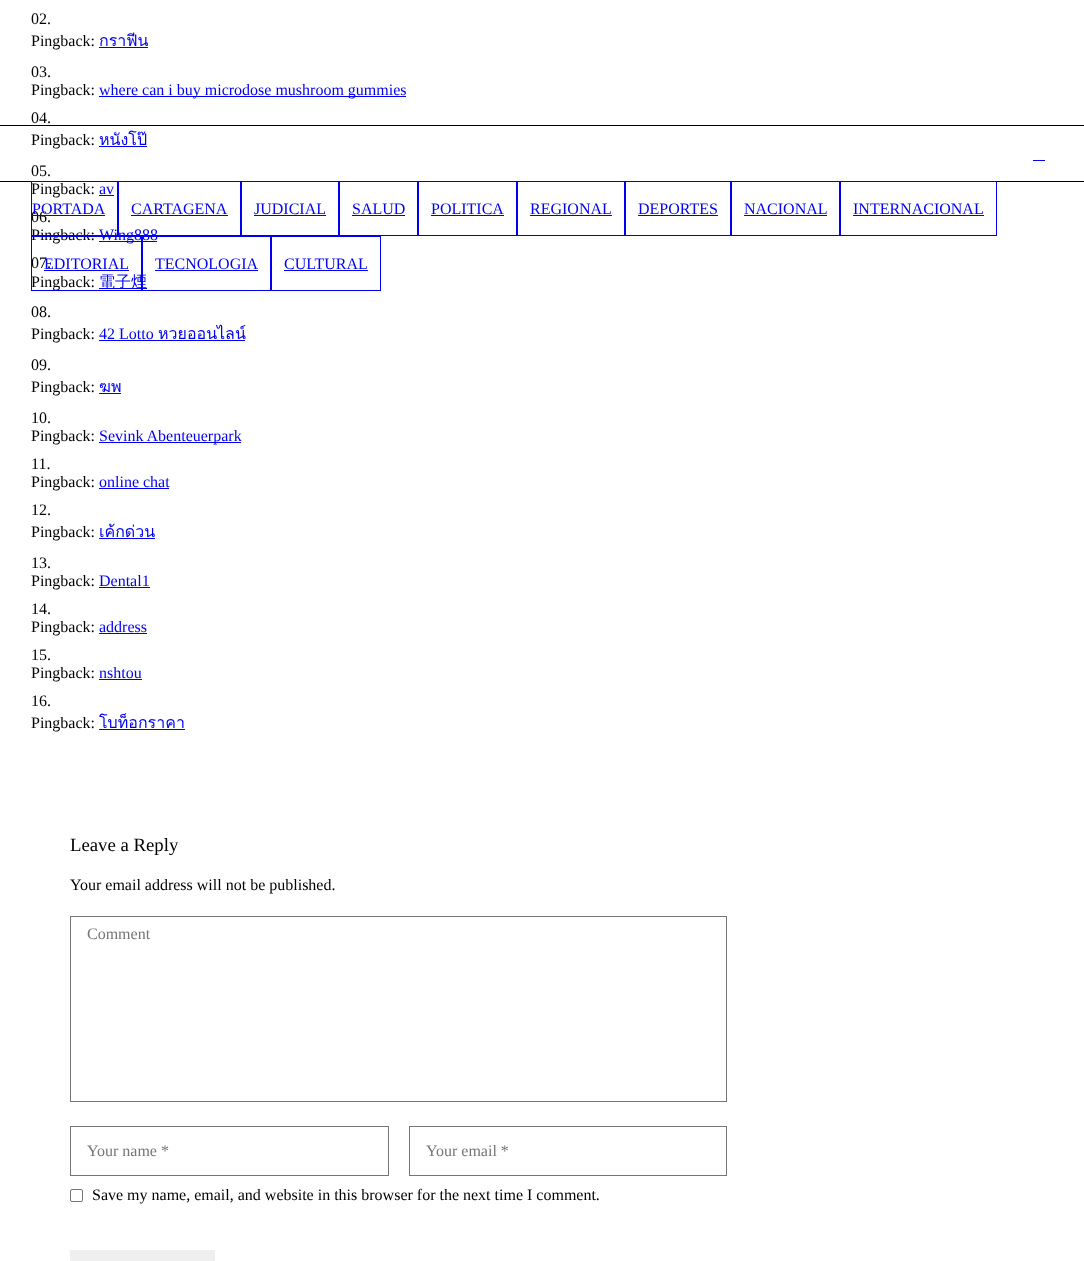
<svg xmlns="http://www.w3.org/2000/svg" width="1084" height="1261" viewBox="0 0 1084 1261">
  <rect width="100%" height="100%" fill="#ffffff"/>
  <text x="31" y="24" font-family="Liberation Serif" font-size="16" fill="#000000">02.</text>
  <text x="31" y="46" font-family="Liberation Serif" font-size="16" fill="#000000">Pingback:</text>
  <text x="99" y="46" font-family="Loma" font-size="16" fill="#0000ee">กราฟีน</text>
  <rect x="99" y="47" width="49" height="1" fill="#0000ee"/>
  <text x="31" y="77" font-family="Liberation Serif" font-size="16" fill="#000000">03.</text>
  <text x="31" y="95" font-family="Liberation Serif" font-size="16" fill="#000000">Pingback:</text>
  <rect x="99" y="96" width="307" height="1" fill="#0000ee"/>
  <text x="99" y="95" font-family="Liberation Serif" font-size="16" fill="#0000ee">where can i buy microdose mushroom gummies</text>
  <text x="31" y="123" font-family="Liberation Serif" font-size="16" fill="#000000">04.</text>
  <text x="31" y="145" font-family="Liberation Serif" font-size="16" fill="#000000">Pingback:</text>
  <text x="99" y="145" font-family="Loma" font-size="16" fill="#0000ee">หนังโป๊</text>
  <rect x="99" y="146" width="48" height="1" fill="#0000ee"/>
  <text x="31" y="176" font-family="Liberation Serif" font-size="16" fill="#000000">05.</text>
  <text x="31" y="194" font-family="Liberation Serif" font-size="16" fill="#000000">Pingback:</text>
  <text x="99" y="194" font-family="Liberation Serif" font-size="16" fill="#0000ee">av</text>
  <rect x="99" y="195" width="15" height="1" fill="#0000ee"/>
  <text x="31" y="222" font-family="Liberation Serif" font-size="16" fill="#000000">06.</text>
  <text x="31" y="240" font-family="Liberation Serif" font-size="16" fill="#000000">Pingback:</text>
  <rect x="99" y="241" width="58" height="1" fill="#0000ee"/>
  <text x="99" y="240" font-family="Liberation Serif" font-size="16" fill="#0000ee">Wing888</text>
  <text x="31" y="268" font-family="Liberation Serif" font-size="16" fill="#000000">07.</text>
  <text x="31" y="287" font-family="Liberation Serif" font-size="16" fill="#000000">Pingback:</text>
  <rect x="99" y="288" width="48" height="1" fill="#0000ee"/>
  <text x="99" y="287" font-family="WenQuanYi Zen Hei" font-size="16" font-weight="500" fill="#0000ee">電子煙</text>
  <text x="31" y="317" font-family="Liberation Serif" font-size="16" fill="#000000">08.</text>
  <text x="31" y="339" font-family="Liberation Serif" font-size="16" fill="#000000">Pingback:</text>
  <text x="99" y="339" font-family="Liberation Serif" font-size="16" fill="#0000ee">42 Lotto</text>
  <rect x="99" y="340" width="146" height="1" fill="#0000ee"/>
  <text x="158" y="339" font-family="Loma" font-size="16" fill="#0000ee">หวยออนไลน์</text>
  <text x="31" y="370" font-family="Liberation Serif" font-size="16" fill="#000000">09.</text>
  <text x="31" y="392" font-family="Liberation Serif" font-size="16" fill="#000000">Pingback:</text>
  <text x="99" y="392" font-family="Loma" font-size="16" fill="#0000ee">ฆพ</text>
  <rect x="99" y="393" width="22" height="1" fill="#0000ee"/>
  <text x="31" y="423" font-family="Liberation Serif" font-size="16" fill="#000000">10.</text>
  <text x="31" y="441" font-family="Liberation Serif" font-size="16" fill="#000000">Pingback:</text>
  <rect x="99" y="442" width="142" height="1" fill="#0000ee"/>
  <text x="99" y="441" font-family="Liberation Serif" font-size="16" fill="#0000ee">Sevink Abenteuerpark</text>
  <text x="31" y="469" font-family="Liberation Serif" font-size="16" fill="#000000">11.</text>
  <text x="31" y="487" font-family="Liberation Serif" font-size="16" fill="#000000">Pingback:</text>
  <text x="99" y="487" font-family="Liberation Serif" font-size="16" fill="#0000ee">online chat</text>
  <rect x="99" y="488" width="70" height="1" fill="#0000ee"/>
  <text x="31" y="515" font-family="Liberation Serif" font-size="16" fill="#000000">12.</text>
  <text x="31" y="537" font-family="Liberation Serif" font-size="16" fill="#000000">Pingback:</text>
  <text x="99" y="537" font-family="Loma" font-size="16" fill="#0000ee">เค้กด่วน</text>
  <rect x="99" y="538" width="56" height="1" fill="#0000ee"/>
  <text x="31" y="568" font-family="Liberation Serif" font-size="16" fill="#000000">13.</text>
  <text x="31" y="586" font-family="Liberation Serif" font-size="16" fill="#000000">Pingback:</text>
  <text x="99" y="586" font-family="Liberation Serif" font-size="16" fill="#0000ee">Dental1</text>
  <rect x="99" y="587" width="51" height="1" fill="#0000ee"/>
  <text x="31" y="614" font-family="Liberation Serif" font-size="16" fill="#000000">14.</text>
  <text x="31" y="632" font-family="Liberation Serif" font-size="16" fill="#000000">Pingback:</text>
  <text x="99" y="632" font-family="Liberation Serif" font-size="16" fill="#0000ee">address</text>
  <rect x="99" y="633" width="48" height="1" fill="#0000ee"/>
  <text x="31" y="660" font-family="Liberation Serif" font-size="16" fill="#000000">15.</text>
  <text x="31" y="678" font-family="Liberation Serif" font-size="16" fill="#000000">Pingback:</text>
  <text x="99" y="678" font-family="Liberation Serif" font-size="16" fill="#0000ee">nshtou</text>
  <rect x="99" y="679" width="43" height="1" fill="#0000ee"/>
  <text x="31" y="706" font-family="Liberation Serif" font-size="16" fill="#000000">16.</text>
  <text x="31" y="728" font-family="Liberation Serif" font-size="16" fill="#000000">Pingback:</text>
  <text x="99" y="728" font-family="Loma" font-size="16" fill="#0000ee">โบท็อกราคา</text>
  <rect x="99" y="729" width="86" height="1" fill="#0000ee"/>
  <text x="70" y="851" font-family="Liberation Serif" font-size="18.75" fill="#000000">Leave a Reply</text>
  <text x="70" y="890" font-family="Liberation Serif" font-size="16" fill="#000000">Your email address will not be published.</text>
  <rect x="70.5" y="916.5" width="656" height="185" fill="none" stroke="#767676"/>
  <text x="87" y="939" font-family="Liberation Serif" font-size="16" fill="#757575">Comment</text>
  <rect x="70.5" y="1126.5" width="318" height="49" fill="none" stroke="#767676"/>
  <text x="87" y="1156" font-family="Liberation Serif" font-size="16" fill="#757575">Your name *</text>
  <rect x="409.5" y="1126.5" width="317" height="49" fill="none" stroke="#767676"/>
  <text x="426" y="1156" font-family="Liberation Serif" font-size="16" fill="#757575">Your email *</text>
  <rect x="70.5" y="1189.5" width="12" height="12" rx="1.5" fill="none" stroke="#767676"/>
  <text x="92" y="1200" font-family="Liberation Serif" font-size="16" fill="#000000">Save my name, email, and website in this browser for the next time I comment.</text>
  <rect x="70" y="1250" width="145" height="11" fill="#efefef"/>
  <rect x="0" y="125" width="1084" height="1" fill="#000000"/>
  <rect x="0" y="181" width="1084" height="1" fill="#000000"/>
  <rect x="1033" y="160" width="12" height="1" fill="#0000ee"/>
  <rect x="31.5" y="181.5" width="86" height="54" fill="none" stroke="#0000ee"/>
  <text x="32" y="214" font-family="Liberation Serif" font-size="16" fill="#0000ee">PORTADA</text>
  <rect x="32" y="215" width="73" height="1" fill="#0000ee"/>
  <rect x="118.5" y="181.5" width="122" height="54" fill="none" stroke="#0000ee"/>
  <text x="131" y="214" font-family="Liberation Serif" font-size="16" fill="#0000ee">CARTAGENA</text>
  <rect x="131" y="215" width="97" height="1" fill="#0000ee"/>
  <rect x="241.5" y="181.5" width="97" height="54" fill="none" stroke="#0000ee"/>
  <text x="254" y="214" font-family="Liberation Serif" font-size="16" fill="#0000ee">JUDICIAL</text>
  <rect x="254" y="215" width="72" height="1" fill="#0000ee"/>
  <rect x="339.5" y="181.5" width="78" height="54" fill="none" stroke="#0000ee"/>
  <text x="352" y="214" font-family="Liberation Serif" font-size="16" fill="#0000ee">SALUD</text>
  <rect x="352" y="215" width="53" height="1" fill="#0000ee"/>
  <rect x="418.5" y="181.5" width="98" height="54" fill="none" stroke="#0000ee"/>
  <text x="431" y="214" font-family="Liberation Serif" font-size="16" fill="#0000ee">POLITICA</text>
  <rect x="431" y="215" width="73" height="1" fill="#0000ee"/>
  <rect x="517.5" y="181.5" width="107" height="54" fill="none" stroke="#0000ee"/>
  <text x="530" y="214" font-family="Liberation Serif" font-size="16" fill="#0000ee">REGIONAL</text>
  <rect x="530" y="215" width="82" height="1" fill="#0000ee"/>
  <rect x="625.5" y="181.5" width="105" height="54" fill="none" stroke="#0000ee"/>
  <text x="638" y="214" font-family="Liberation Serif" font-size="16" fill="#0000ee">DEPORTES</text>
  <rect x="638" y="215" width="80" height="1" fill="#0000ee"/>
  <rect x="731.5" y="181.5" width="108" height="54" fill="none" stroke="#0000ee"/>
  <text x="744" y="214" font-family="Liberation Serif" font-size="16" fill="#0000ee">NACIONAL</text>
  <rect x="744" y="215" width="83" height="1" fill="#0000ee"/>
  <rect x="840.5" y="181.5" width="156" height="54" fill="none" stroke="#0000ee"/>
  <text x="853" y="214" font-family="Liberation Serif" font-size="16" fill="#0000ee">INTERNACIONAL</text>
  <rect x="853" y="215" width="131" height="1" fill="#0000ee"/>
  <rect x="31.5" y="236.5" width="110" height="54" fill="none" stroke="#0000ee"/>
  <text x="44" y="269" font-family="Liberation Serif" font-size="16" fill="#0000ee">EDITORIAL</text>
  <rect x="44" y="270" width="85" height="1" fill="#0000ee"/>
  <rect x="142.5" y="236.5" width="128" height="54" fill="none" stroke="#0000ee"/>
  <text x="155" y="269" font-family="Liberation Serif" font-size="16" fill="#0000ee">TECNOLOGIA</text>
  <rect x="155" y="270" width="103" height="1" fill="#0000ee"/>
  <rect x="271.5" y="236.5" width="109" height="54" fill="none" stroke="#0000ee"/>
  <text x="284" y="269" font-family="Liberation Serif" font-size="16" fill="#0000ee">CULTURAL</text>
  <rect x="284" y="270" width="84" height="1" fill="#0000ee"/>
</svg>
